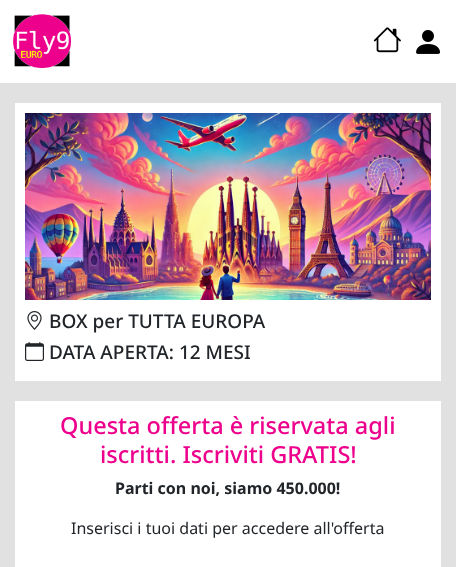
<svg xmlns="http://www.w3.org/2000/svg" width="456" height="567" viewBox="0 0 456 567">
  <rect width="100%" height="100%" fill="#e1e1e1"/>
  <rect x="0" y="0" width="456" height="83" fill="#ffffff"/>
  <image x="13" y="14" width="58" height="54" href="img1.png"/>
  <image x="373" y="27" width="28" height="26" href="img2.png"/>
  <image x="416" y="30" width="24" height="24" href="img3.png"/>
  <rect x="15" y="103" width="426" height="278" fill="#ffffff"/>
  <image x="25" y="113" width="406" height="187" href="img4.png"/>
  <image x="27" y="311" width="15" height="19" href="img5.png"/>
  <text x="49" y="328" font-family="Noto Sans" font-size="19" font-weight="500" fill="#212529">BOX per TUTTA EUROPA</text>
  <image x="25" y="342" width="19" height="19" href="img6.png"/>
  <text x="49" y="359" font-family="Noto Sans" font-size="19" font-weight="500" fill="#212529">DATA APERTA: 12 MESI</text>
  <rect x="15" y="401" width="426" height="166" fill="#ffffff"/>
  <text x="60" y="434" font-family="Noto Sans" font-size="23.5" font-weight="500" fill="#ed008c">Questa offerta è riservata agli</text>
  <text x="100" y="463" font-family="Noto Sans" font-size="23.5" font-weight="500" fill="#ed008c">iscritti. Iscriviti GRATIS!</text>
  <text x="115" y="494" font-family="Noto Sans" font-size="16" font-weight="bold" fill="#212529">Parti con noi, siamo 450.000!</text>
  <text x="71" y="534" font-family="Noto Sans" font-size="16" fill="#212529">Inserisci i tuoi dati per accedere all'offerta</text>
</svg>
